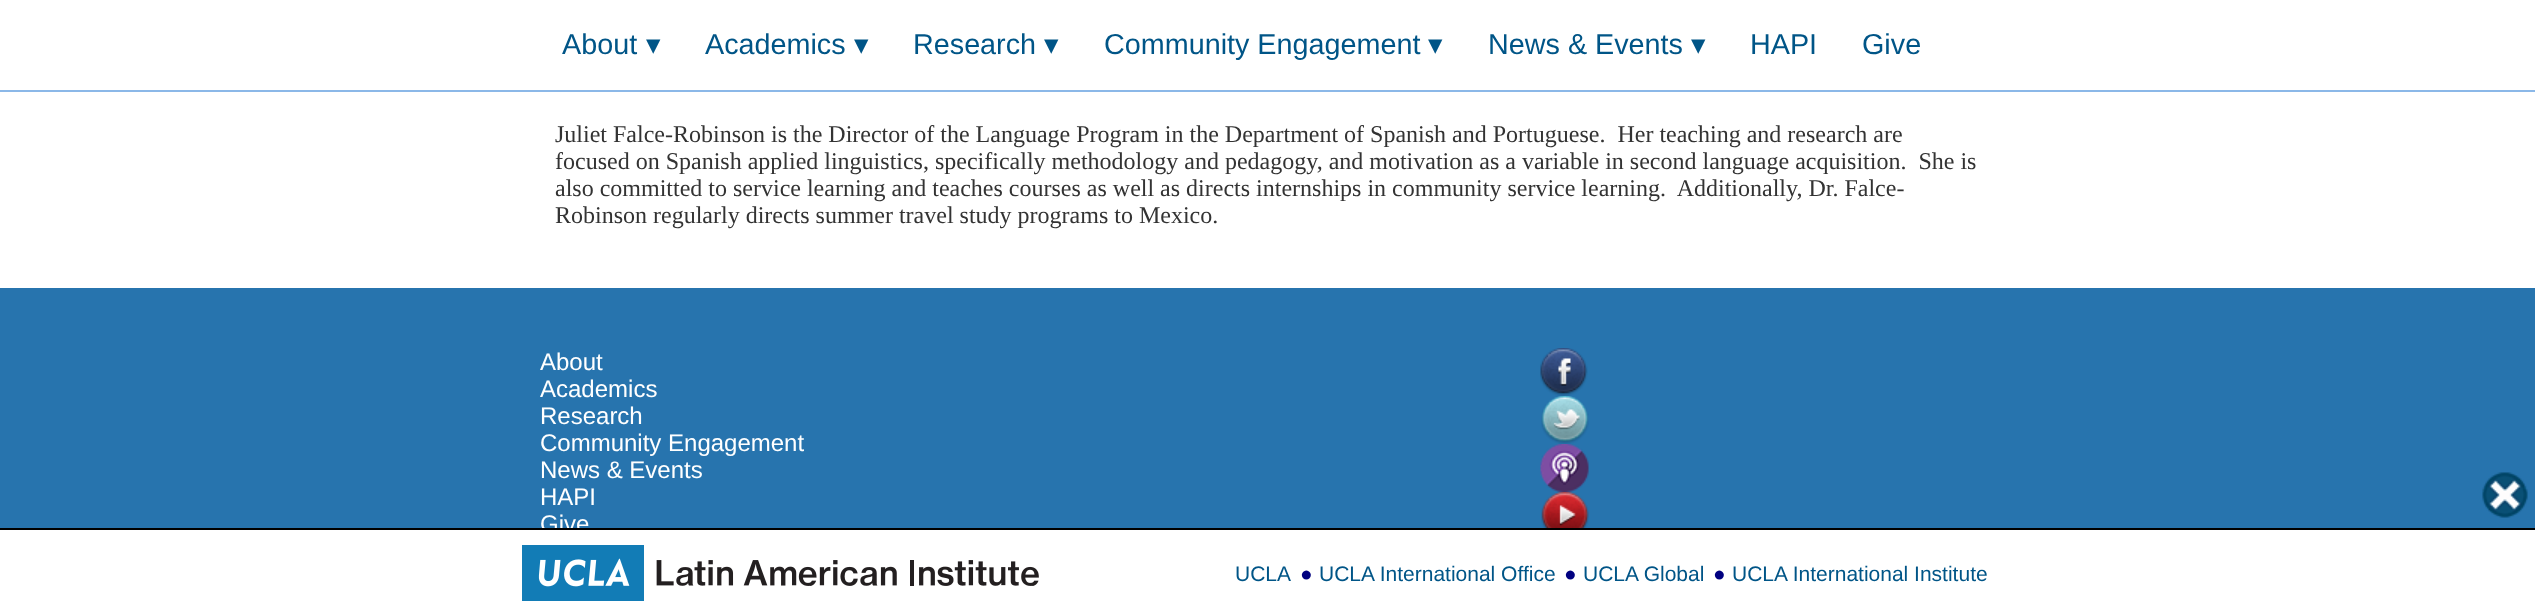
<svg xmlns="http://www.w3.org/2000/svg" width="2535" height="616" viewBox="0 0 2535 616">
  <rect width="100%" height="100%" fill="#ffffff"/>
  <rect x="0" y="90" width="2535" height="2" fill="#8bb8e8"/>
  <text x="562" y="54" font-family="Liberation Sans" font-size="28.75" fill="#005587">About</text>
  <text x="646" y="54" font-family="DejaVu Sans" font-size="28.75" fill="#005587">▾</text>
  <text x="705" y="54" font-family="Liberation Sans" font-size="28.75" fill="#005587">Academics</text>
  <text x="854" y="54" font-family="DejaVu Sans" font-size="28.75" fill="#005587">▾</text>
  <text x="913" y="54" font-family="Liberation Sans" font-size="28.75" fill="#005587">Research</text>
  <text x="1044" y="54" font-family="DejaVu Sans" font-size="28.75" fill="#005587">▾</text>
  <text x="1104" y="54" font-family="Liberation Sans" font-size="28.75" fill="#005587">Community Engagement</text>
  <text x="1428" y="54" font-family="DejaVu Sans" font-size="28.75" fill="#005587">▾</text>
  <text x="1488" y="54" font-family="Liberation Sans" font-size="28.75" fill="#005587">News &amp; Events</text>
  <text x="1691" y="54" font-family="DejaVu Sans" font-size="28.75" fill="#005587">▾</text>
  <text x="1750" y="54" font-family="Liberation Sans" font-size="28.75" fill="#005587">HAPI</text>
  <text x="1862" y="54" font-family="Liberation Sans" font-size="28.75" fill="#005587">Give</text>
  <text x="555" y="142" font-family="Liberation Serif" font-size="24" fill="#333333" xml:space="preserve">Juliet Falce-Robinson is the Director of the Language Program in the Department of Spanish and Portuguese.  Her teaching and research are</text>
  <text x="555" y="169" font-family="Liberation Serif" font-size="24" fill="#333333" xml:space="preserve">focused on Spanish applied linguistics, specifically methodology and pedagogy, and motivation as a variable in second language acquisition.  She is</text>
  <text x="555" y="196" font-family="Liberation Serif" font-size="24" fill="#333333" xml:space="preserve">also committed to service learning and teaches courses as well as directs internships in community service learning.  Additionally, Dr. Falce-</text>
  <text x="555" y="223" font-family="Liberation Serif" font-size="24" fill="#333333">Robinson regularly directs summer travel study programs to Mexico.</text>
  <rect x="0" y="288" width="2535" height="240" fill="#2774ae"/>
  <text x="540" y="370" font-family="Liberation Sans" font-size="24" fill="#ffffff">About</text>
  <text x="540" y="397" font-family="Liberation Sans" font-size="24" fill="#ffffff">Academics</text>
  <text x="540" y="424" font-family="Liberation Sans" font-size="24" fill="#ffffff">Research</text>
  <text x="540" y="451" font-family="Liberation Sans" font-size="24" fill="#ffffff">Community Engagement</text>
  <text x="540" y="478" font-family="Liberation Sans" font-size="24" fill="#ffffff">News &amp; Events</text>
  <text x="540" y="505" font-family="Liberation Sans" font-size="24" fill="#ffffff">HAPI</text>
  <text x="540" y="532" font-family="Liberation Sans" font-size="24" fill="#ffffff">Give</text>
  <image x="1540" y="348" width="48" height="48" href="img1.png"/>
  <image x="1541" y="396" width="48" height="48" href="img2.png"/>
  <image x="1540" y="444" width="49" height="48" href="img3.png"/>
  <image x="1541" y="492" width="48" height="36" href="img4.png"/>
  <rect x="0" y="528" width="2535" height="2" fill="#000000"/>
  <image x="2482" y="472" width="46" height="46" href="img5.png"/>
  <image x="522" y="545" width="517" height="56" href="img6.png"/>
  <text x="1235" y="581" font-family="Liberation Sans" font-size="21" fill="#005587">UCLA</text>
  <text x="1300" y="581" font-family="Liberation Sans" font-size="21" fill="#000080">●</text>
  <text x="1319" y="581" font-family="Liberation Sans" font-size="21" fill="#005587">UCLA International Office</text>
  <text x="1564" y="581" font-family="Liberation Sans" font-size="21" fill="#000080">●</text>
  <text x="1583" y="581" font-family="Liberation Sans" font-size="21" fill="#005587">UCLA Global</text>
  <text x="1713" y="581" font-family="Liberation Sans" font-size="21" fill="#000080">●</text>
  <text x="1732" y="581" font-family="Liberation Sans" font-size="21" fill="#005587">UCLA International Institute</text>
</svg>
